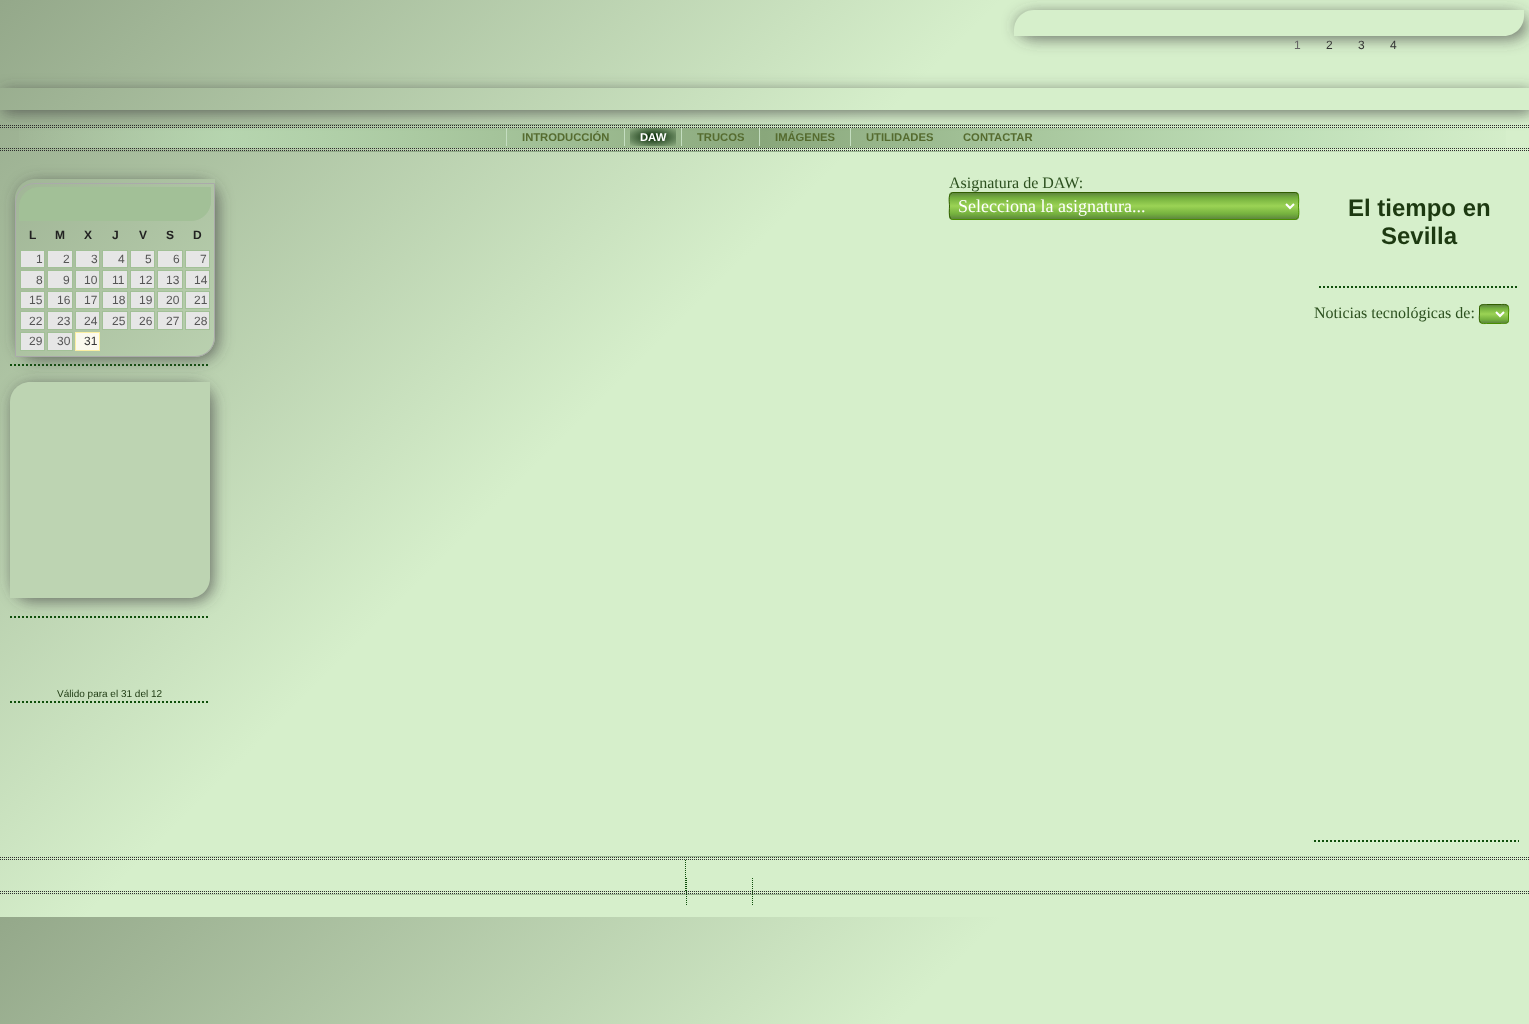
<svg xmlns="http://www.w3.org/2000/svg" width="1529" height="1024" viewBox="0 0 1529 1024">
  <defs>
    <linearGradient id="g1" gradientUnits="userSpaceOnUse" x1="153" y1="-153" x2="1376" y2="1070"><stop offset="0" stop-color="#94a88a"/><stop offset="0.41" stop-color="#d6efcb"/><stop offset="1" stop-color="#d6efcb"/></linearGradient>
    <linearGradient id="g2" gradientUnits="userSpaceOnUse" x1="153" y1="764" x2="1376" y2="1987"><stop offset="0" stop-color="#94a88a"/><stop offset="0.41" stop-color="#d6efcb"/><stop offset="1" stop-color="#d6efcb"/></linearGradient>
    <clipPath id="clip1"><path d="M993 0H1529V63H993ZM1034 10H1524V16C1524 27 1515 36 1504 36H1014V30C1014 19 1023 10 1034 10Z" clip-rule="evenodd"/></clipPath>
    <filter id="blur1" x="-50%" y="-200%" width="200%" height="500%"><feGaussianBlur stdDeviation="7.5"/></filter>
    <radialGradient id="g3" gradientUnits="userSpaceOnUse" cx="0" cy="0" r="1" gradientTransform="matrix(1081 0 0 0.7 765 125)"><stop offset="0" stop-color="#002400"/><stop offset="0.01" stop-color="#002400" stop-opacity="0.99"/><stop offset="1" stop-color="#002400" stop-opacity="0"/></radialGradient>
    <linearGradient id="g4" gradientUnits="userSpaceOnUse" x1="0" y1="138" x2="1529" y2="138"><stop offset="0" stop-color="#b9dbb3" stop-opacity="0"/><stop offset="0.15" stop-color="#b9dbb3" stop-opacity="0.75"/><stop offset="0.5" stop-color="#89a77b"/><stop offset="0.85" stop-color="#b9dbb3" stop-opacity="0.75"/><stop offset="1" stop-color="#b9dbb3" stop-opacity="0"/></linearGradient>
    <clipPath id="clip2"><path d="M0 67H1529V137H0ZM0 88H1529V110H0Z" clip-rule="evenodd"/></clipPath>
    <radialGradient id="g5" gradientUnits="userSpaceOnUse" cx="0" cy="0" r="1" gradientTransform="matrix(33 0 0 13 653 137)"><stop offset="0" stop-color="#002400"/><stop offset="0.01" stop-color="#002400" stop-opacity="0.99"/><stop offset="1" stop-color="#002400" stop-opacity="0"/></radialGradient>
    <radialGradient id="g6" gradientUnits="userSpaceOnUse" cx="0" cy="0" r="1" gradientTransform="matrix(1081 0 0 0.7 765 152)"><stop offset="0" stop-color="#002400"/><stop offset="0.01" stop-color="#002400" stop-opacity="0.99"/><stop offset="1" stop-color="#002400" stop-opacity="0"/></radialGradient>
    <clipPath id="clip3"><path d="M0 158H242V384H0ZM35 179H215V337C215 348 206 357 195 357H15V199C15 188 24 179 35 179Z" clip-rule="evenodd"/></clipPath>
    <clipPath id="clip4"><rect x="949" y="192" width="350" height="28" rx="4"/></clipPath>
    <linearGradient id="g7" gradientUnits="userSpaceOnUse" x1="1124" y1="167" x2="1124" y2="193"><stop offset="0" stop-color="#336200" stop-opacity="0.5"/><stop offset="0.09" stop-color="#498e00" stop-opacity="0.5"/><stop offset="0.19" stop-color="#60ba00" stop-opacity="0.5"/><stop offset="0.5" stop-color="#adff2f" stop-opacity="0.5"/><stop offset="0.81" stop-color="#60ba00" stop-opacity="0.5"/><stop offset="0.91" stop-color="#498e00" stop-opacity="0.5"/><stop offset="1" stop-color="#336200" stop-opacity="0.5"/></linearGradient>
    <linearGradient id="g8" gradientUnits="userSpaceOnUse" x1="1124" y1="193" x2="1124" y2="219"><stop offset="0" stop-color="#336200" stop-opacity="0.5"/><stop offset="0.09" stop-color="#498e00" stop-opacity="0.5"/><stop offset="0.19" stop-color="#60ba00" stop-opacity="0.5"/><stop offset="0.5" stop-color="#adff2f" stop-opacity="0.5"/><stop offset="0.81" stop-color="#60ba00" stop-opacity="0.5"/><stop offset="0.91" stop-color="#498e00" stop-opacity="0.5"/><stop offset="1" stop-color="#336200" stop-opacity="0.5"/></linearGradient>
    <linearGradient id="g9" gradientUnits="userSpaceOnUse" x1="1124" y1="219" x2="1124" y2="245"><stop offset="0" stop-color="#336200" stop-opacity="0.5"/><stop offset="0.09" stop-color="#498e00" stop-opacity="0.5"/><stop offset="0.19" stop-color="#60ba00" stop-opacity="0.5"/><stop offset="0.5" stop-color="#adff2f" stop-opacity="0.5"/><stop offset="0.81" stop-color="#60ba00" stop-opacity="0.5"/><stop offset="0.91" stop-color="#498e00" stop-opacity="0.5"/><stop offset="1" stop-color="#336200" stop-opacity="0.5"/></linearGradient>
    <clipPath id="clip5"><rect x="1479" y="304" width="30" height="20" rx="4"/></clipPath>
    <linearGradient id="g10" gradientUnits="userSpaceOnUse" x1="1494" y1="305" x2="1494" y2="323"><stop offset="0" stop-color="#336200" stop-opacity="0.5"/><stop offset="0.09" stop-color="#498e00" stop-opacity="0.5"/><stop offset="0.19" stop-color="#60ba00" stop-opacity="0.5"/><stop offset="0.5" stop-color="#adff2f" stop-opacity="0.5"/><stop offset="0.81" stop-color="#60ba00" stop-opacity="0.5"/><stop offset="0.91" stop-color="#498e00" stop-opacity="0.5"/><stop offset="1" stop-color="#336200" stop-opacity="0.5"/></linearGradient>
    <radialGradient id="g11" gradientUnits="userSpaceOnUse" cx="0" cy="0" r="1" gradientTransform="matrix(1081 0 0 0.7 765 857)"><stop offset="0" stop-color="#002400"/><stop offset="0.01" stop-color="#002400" stop-opacity="0.99"/><stop offset="1" stop-color="#002400" stop-opacity="0"/></radialGradient>
    <radialGradient id="g12" gradientUnits="userSpaceOnUse" cx="0" cy="0" r="1" gradientTransform="matrix(1081 0 0 0.7 765 895)"><stop offset="0" stop-color="#002400"/><stop offset="0.01" stop-color="#002400" stop-opacity="0.99"/><stop offset="1" stop-color="#002400" stop-opacity="0"/></radialGradient>
  </defs>
  <rect width="100%" height="100%" fill="#ffffff"/>
  <rect x="0" y="0" width="1529" height="917" fill="url(#g1)"/>
  <rect x="0" y="917" width="1529" height="107" fill="url(#g2)"/>
  <g clip-path="url(#clip1)">
    <rect x="1017" y="13" width="510" height="26" rx="20" fill="#424242" fill-opacity="0.7" filter="url(#blur1)"/>
  </g>
  <text x="1294" y="49" font-family="Liberation Sans" font-size="12" fill="#666666">1</text>
  <text x="1326" y="49" font-family="Liberation Sans" font-size="12" fill="#363636">2</text>
  <text x="1358" y="49" font-family="Liberation Sans" font-size="12" fill="#363636">3</text>
  <text x="1390" y="49" font-family="Liberation Sans" font-size="12" fill="#363636">4</text>
  <rect x="47" y="124" width="1436" height="1" fill="url(#g3)"/>
  <path d="M0 125.5H1529" fill="none" stroke="#2d2d2d" stroke-dasharray="1 1"/>
  <path d="M0 127.5H1529" fill="none" stroke="#2d2d2d" stroke-dasharray="1 1"/>
  <rect x="19" y="128" width="1487" height="20" fill="url(#g4)"/>
  <g clip-path="url(#clip2)">
    <rect x="3" y="91" width="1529" height="22" fill="#424242" fill-opacity="0.7" filter="url(#blur1)"/>
  </g>
  <rect x="506" y="128" width="1" height="18" fill="#c4ddc0"/>
  <text x="522" y="141" font-family="Liberation Sans" font-size="11.25" font-weight="bold" fill="#556b2f">INTRODUCCIÓN</text>
  <rect x="624" y="128" width="1" height="18" fill="#c4ddc0"/>
  <rect x="630" y="128" width="46" height="18" fill="url(#g5)"/>
  <text x="640" y="141" font-family="Liberation Sans" font-size="11.25" font-weight="bold" fill="#ffffff">DAW</text>
  <rect x="681" y="128" width="1" height="18" fill="#c4ddc0"/>
  <text x="697" y="141" font-family="Liberation Sans" font-size="11.25" font-weight="bold" fill="#556b2f">TRUCOS</text>
  <rect x="759" y="128" width="1" height="18" fill="#c4ddc0"/>
  <text x="775" y="141" font-family="Liberation Sans" font-size="11.25" font-weight="bold" fill="#556b2f">IMÁGENES</text>
  <rect x="850" y="128" width="1" height="18" fill="#c4ddc0"/>
  <text x="866" y="141" font-family="Liberation Sans" font-size="11.25" font-weight="bold" fill="#556b2f">UTILIDADES</text>
  <text x="963" y="141" font-family="Liberation Sans" font-size="11.25" font-weight="bold" fill="#556b2f">CONTACTAR</text>
  <path d="M0 148.5H1529" fill="none" stroke="#2d2d2d" stroke-dasharray="1 1"/>
  <path d="M0 150.5H1529" fill="none" stroke="#2d2d2d" stroke-dasharray="1 1"/>
  <rect x="47" y="151" width="1436" height="1" fill="url(#g6)"/>
  <path d="M10 365H210" fill="none" stroke="#0f4f0b" stroke-width="2" stroke-dasharray="2 2"/>
  <g clip-path="url(#clip3)">
    <rect x="18" y="182" width="200" height="178" rx="20" fill="#424242" fill-opacity="0.7" filter="url(#blur1)"/>
  </g>
  <path d="M35 183.5H214.5V337C214.5 348 206 356.5 195 356.5H15.5V203C15.5 192 24 183.5 35 183.5Z" fill="none" stroke="#aaaaaa"/>
  <path d="M39 187.5H210.5V201C210.5 212 202 220.5 191 220.5H19.5V207C19.5 196 28 187.5 39 187.5Z" fill="#a2c097" stroke="#a2c097"/>
  <text x="29" y="239" font-family="Liberation Sans" font-size="12" font-weight="bold" fill="#222222">L</text>
  <text x="55" y="239" font-family="Liberation Sans" font-size="12" font-weight="bold" fill="#222222">M</text>
  <text x="84" y="239" font-family="Liberation Sans" font-size="12" font-weight="bold" fill="#222222">X</text>
  <text x="112" y="239" font-family="Liberation Sans" font-size="12" font-weight="bold" fill="#222222">J</text>
  <text x="139" y="239" font-family="Liberation Sans" font-size="12" font-weight="bold" fill="#222222">V</text>
  <text x="166" y="239" font-family="Liberation Sans" font-size="12" font-weight="bold" fill="#222222">S</text>
  <text x="193" y="239" font-family="Liberation Sans" font-size="12" font-weight="bold" fill="#222222">D</text>
  <rect x="20.5" y="250.5" width="24" height="17" fill="#e6e6e6" stroke="#a2c097"/>
  <text x="36" y="263" font-family="Liberation Sans" font-size="12" fill="#555555">1</text>
  <rect x="47.5" y="250.5" width="25" height="17" fill="#e6e6e6" stroke="#a2c097"/>
  <text x="63" y="263" font-family="Liberation Sans" font-size="12" fill="#555555">2</text>
  <rect x="75.5" y="250.5" width="24" height="17" fill="#e6e6e6" stroke="#a2c097"/>
  <text x="91" y="263" font-family="Liberation Sans" font-size="12" fill="#555555">3</text>
  <rect x="102.5" y="250.5" width="25" height="17" fill="#e6e6e6" stroke="#a2c097"/>
  <text x="118" y="263" font-family="Liberation Sans" font-size="12" fill="#555555">4</text>
  <rect x="130.5" y="250.5" width="24" height="17" fill="#e6e6e6" stroke="#a2c097"/>
  <text x="145" y="263" font-family="Liberation Sans" font-size="12" fill="#555555">5</text>
  <rect x="157.5" y="250.5" width="25" height="17" fill="#e6e6e6" stroke="#a2c097"/>
  <text x="173" y="263" font-family="Liberation Sans" font-size="12" fill="#555555">6</text>
  <rect x="185.5" y="250.5" width="24" height="17" fill="#e6e6e6" stroke="#a2c097"/>
  <text x="200" y="263" font-family="Liberation Sans" font-size="12" fill="#555555">7</text>
  <rect x="20.5" y="270.5" width="24" height="18" fill="#e6e6e6" stroke="#a2c097"/>
  <text x="36" y="284" font-family="Liberation Sans" font-size="12" fill="#555555">8</text>
  <rect x="47.5" y="270.5" width="25" height="18" fill="#e6e6e6" stroke="#a2c097"/>
  <text x="63" y="284" font-family="Liberation Sans" font-size="12" fill="#555555">9</text>
  <rect x="75.5" y="270.5" width="24" height="18" fill="#e6e6e6" stroke="#a2c097"/>
  <text x="84" y="284" font-family="Liberation Sans" font-size="12" fill="#555555">10</text>
  <rect x="102.5" y="270.5" width="25" height="18" fill="#e6e6e6" stroke="#a2c097"/>
  <text x="112" y="284" font-family="Liberation Sans" font-size="12" fill="#555555">11</text>
  <rect x="130.5" y="270.5" width="24" height="18" fill="#e6e6e6" stroke="#a2c097"/>
  <text x="139" y="284" font-family="Liberation Sans" font-size="12" fill="#555555">12</text>
  <rect x="157.5" y="270.5" width="25" height="18" fill="#e6e6e6" stroke="#a2c097"/>
  <text x="166" y="284" font-family="Liberation Sans" font-size="12" fill="#555555">13</text>
  <rect x="185.5" y="270.5" width="24" height="18" fill="#e6e6e6" stroke="#a2c097"/>
  <text x="194" y="284" font-family="Liberation Sans" font-size="12" fill="#555555">14</text>
  <rect x="20.5" y="291.5" width="24" height="17" fill="#e6e6e6" stroke="#a2c097"/>
  <text x="29" y="304" font-family="Liberation Sans" font-size="12" fill="#555555">15</text>
  <rect x="47.5" y="291.5" width="25" height="17" fill="#e6e6e6" stroke="#a2c097"/>
  <text x="57" y="304" font-family="Liberation Sans" font-size="12" fill="#555555">16</text>
  <rect x="75.5" y="291.5" width="24" height="17" fill="#e6e6e6" stroke="#a2c097"/>
  <text x="84" y="304" font-family="Liberation Sans" font-size="12" fill="#555555">17</text>
  <rect x="102.5" y="291.5" width="25" height="17" fill="#e6e6e6" stroke="#a2c097"/>
  <text x="112" y="304" font-family="Liberation Sans" font-size="12" fill="#555555">18</text>
  <rect x="130.5" y="291.5" width="24" height="17" fill="#e6e6e6" stroke="#a2c097"/>
  <text x="139" y="304" font-family="Liberation Sans" font-size="12" fill="#555555">19</text>
  <rect x="157.5" y="291.5" width="25" height="17" fill="#e6e6e6" stroke="#a2c097"/>
  <text x="166" y="304" font-family="Liberation Sans" font-size="12" fill="#555555">20</text>
  <rect x="185.5" y="291.5" width="24" height="17" fill="#e6e6e6" stroke="#a2c097"/>
  <text x="194" y="304" font-family="Liberation Sans" font-size="12" fill="#555555">21</text>
  <rect x="20.5" y="311.5" width="24" height="18" fill="#e6e6e6" stroke="#a2c097"/>
  <text x="29" y="325" font-family="Liberation Sans" font-size="12" fill="#555555">22</text>
  <rect x="47.5" y="311.5" width="25" height="18" fill="#e6e6e6" stroke="#a2c097"/>
  <text x="57" y="325" font-family="Liberation Sans" font-size="12" fill="#555555">23</text>
  <rect x="75.5" y="311.5" width="24" height="18" fill="#e6e6e6" stroke="#a2c097"/>
  <text x="84" y="325" font-family="Liberation Sans" font-size="12" fill="#555555">24</text>
  <rect x="102.5" y="311.5" width="25" height="18" fill="#e6e6e6" stroke="#a2c097"/>
  <text x="112" y="325" font-family="Liberation Sans" font-size="12" fill="#555555">25</text>
  <rect x="130.5" y="311.5" width="24" height="18" fill="#e6e6e6" stroke="#a2c097"/>
  <text x="139" y="325" font-family="Liberation Sans" font-size="12" fill="#555555">26</text>
  <rect x="157.5" y="311.5" width="25" height="18" fill="#e6e6e6" stroke="#a2c097"/>
  <text x="166" y="325" font-family="Liberation Sans" font-size="12" fill="#555555">27</text>
  <rect x="185.5" y="311.5" width="24" height="18" fill="#e6e6e6" stroke="#a2c097"/>
  <text x="194" y="325" font-family="Liberation Sans" font-size="12" fill="#555555">28</text>
  <rect x="20.5" y="332.5" width="24" height="18" fill="#e6e6e6" stroke="#a2c097"/>
  <text x="29" y="345" font-family="Liberation Sans" font-size="12" fill="#555555">29</text>
  <rect x="47.5" y="332.5" width="25" height="18" fill="#e6e6e6" stroke="#a2c097"/>
  <text x="57" y="345" font-family="Liberation Sans" font-size="12" fill="#555555">30</text>
  <rect x="75.5" y="332.5" width="24" height="18" fill="#fbf9ee" stroke="#fcefa1"/>
  <text x="84" y="345" font-family="Liberation Sans" font-size="12" fill="#363636">31</text>
  <path d="M10 617H210" fill="none" stroke="#0f4f0b" stroke-width="2" stroke-dasharray="2 2"/>
  <rect x="13" y="385" width="200" height="216" rx="20" fill="#424242" fill-opacity="0.7" filter="url(#blur1)"/>
  <path d="M30 382H210V578C210 589 201 598 190 598H10V402C10 391 19 382 30 382Z" fill="#bdd4b2"/>
  <text x="57" y="697" font-family="Liberation Sans" font-size="10" fill="#1d3911">Válido para el 31 del 12</text>
  <path d="M10 702H210" fill="none" stroke="#0f4f0b" stroke-width="2" stroke-dasharray="2 2"/>
  <text x="949" y="188" font-family="Liberation Serif" font-size="16" fill="#2c501f">Asignatura de DAW:</text>
  <rect x="949" y="192" width="350" height="28" rx="4" fill="#89a77b"/>
  <g clip-path="url(#clip4)">
    <rect x="949" y="192" width="350" height="1" fill="url(#g7)"/>
    <rect x="949" y="193" width="350" height="26" fill="url(#g8)"/>
    <rect x="949" y="219" width="350" height="1" fill="url(#g9)"/>
  </g>
  <path d="M1297.5 193.5C1299.5 196 1298.5 203.5 1298.5 206C1298.5 209 1300 216.5 1297 218.5L1295.5 219.5H952.5L950.5 218.5" fill="none" stroke="#498e00"/>
  <path d="M950.5 218.5C948.5 216 949.5 208.5 949.5 206C949.5 203 948 195.5 951 193.5L952.5 192.5H1295.5L1297.5 193.5" fill="none" stroke="#315f00"/>
  <path d="M1286 204L1290 208L1294 204" fill="none" stroke="#ffffff" stroke-width="2"/>
  <text x="958" y="212" font-family="Liberation Serif" font-size="18" fill="#ffffff">Selecciona la asignatura...</text>
  <path d="M1319 287H1519" fill="none" stroke="#0f4f0b" stroke-width="2" stroke-dasharray="2 2"/>
  <text x="1348" y="216" font-family="Liberation Sans" font-size="24" font-weight="bold" fill="#1d3911">El tiempo en</text>
  <text x="1381" y="244" font-family="Liberation Sans" font-size="24" font-weight="bold" fill="#1d3911">Sevilla</text>
  <path d="M1314 841H1519" fill="none" stroke="#0f4f0b" stroke-width="2" stroke-dasharray="2 2"/>
  <text x="1314" y="318" font-family="Liberation Serif" font-size="16" fill="#2c501f">Noticias tecnológicas de:</text>
  <rect x="1479" y="304" width="30" height="20" rx="4" fill="#89a77b"/>
  <g clip-path="url(#clip5)">
    <rect x="1479" y="305" width="30" height="18" fill="url(#g10)"/>
  </g>
  <path d="M1507.5 305.5C1509.5 307.5 1508.5 312 1508.5 314V320.5C1508 324 1504 323.5 1501.5 323.5H1486.5C1485 323.5 1482 324 1480.5 322.5" fill="none" stroke="#498e00"/>
  <path d="M1480.5 322.5C1478.5 320.5 1479.5 316 1479.5 314V307.5C1480 304 1484 304.5 1486.5 304.5H1501.5C1503 304.5 1506 304 1507.5 305.5" fill="none" stroke="#315f00"/>
  <path d="M1496 312L1500 316L1504 312" fill="none" stroke="#ffffff" stroke-width="2"/>
  <rect x="47" y="856" width="1436" height="1" fill="url(#g11)"/>
  <path d="M0 857.5H1529" fill="none" stroke="#2d2d2d" stroke-dasharray="1 1"/>
  <path d="M0 859.5H1529" fill="none" stroke="#2d2d2d" stroke-dasharray="1 1"/>
  <path d="M0 891.5H1529" fill="none" stroke="#2d2d2d" stroke-dasharray="1 1"/>
  <path d="M0 893.5H1529" fill="none" stroke="#2d2d2d" stroke-dasharray="1 1"/>
  <rect x="47" y="894" width="1436" height="1" fill="url(#g12)"/>
  <path d="M685.5 860V891M686.5 878V906" fill="none" stroke="#0f4f0b" stroke-dasharray="1 1"/>
  <path d="M752.5 878V906" fill="none" stroke="#0f4f0b" stroke-dasharray="1 1"/>
</svg>
